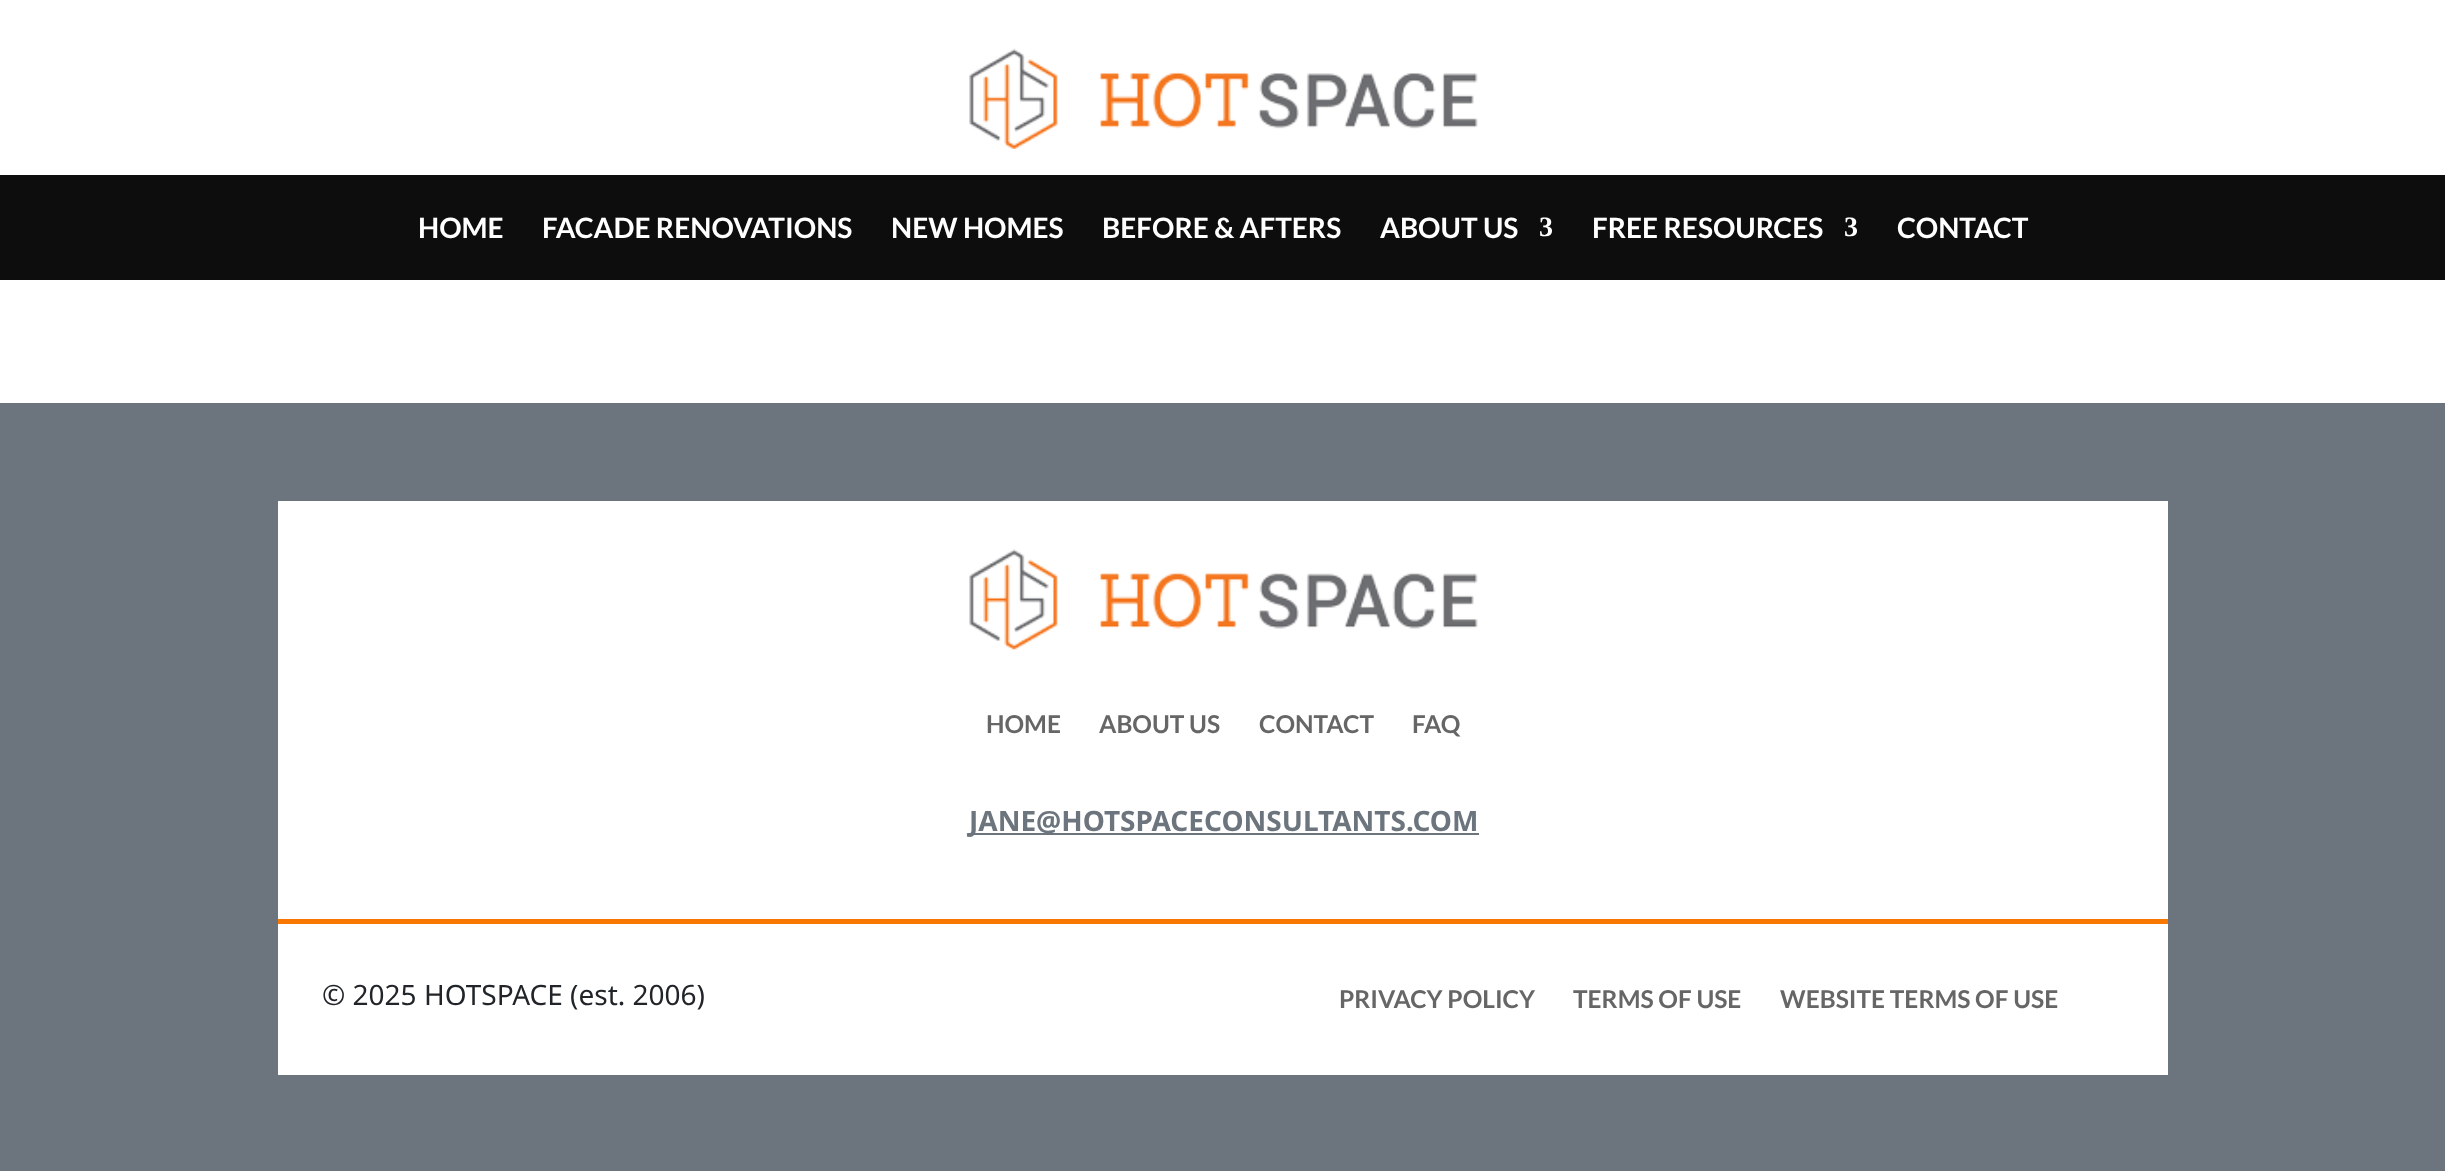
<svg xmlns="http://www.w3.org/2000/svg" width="2445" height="1171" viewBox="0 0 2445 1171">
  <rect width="100%" height="100%" fill="#ffffff"/>
  <image x="969" y="48" width="509" height="101" href="img1.png"/>
  <rect x="0" y="175" width="2445" height="105" fill="#0d0d0e"/>
  <text x="418" y="238" font-family="Lato" font-size="28" font-weight="bold" fill="#ffffff">HOME</text>
  <text x="542" y="238" font-family="Lato" font-size="28" font-weight="bold" fill="#ffffff">FACADE RENOVATIONS</text>
  <text x="891" y="238" font-family="Lato" font-size="28" font-weight="bold" fill="#ffffff">NEW HOMES</text>
  <text x="1102" y="238" font-family="Lato" font-size="28" font-weight="bold" fill="#ffffff">BEFORE &amp; AFTERS</text>
  <text x="1380" y="238" font-family="Lato" font-size="28" font-weight="bold" fill="#ffffff">ABOUT US</text>
  <text x="1539" y="236" font-family="Liberation Serif" font-size="28" font-weight="bold" fill="#ffffff">3</text>
  <text x="1592" y="238" font-family="Lato" font-size="28" font-weight="bold" fill="#ffffff">FREE RESOURCES</text>
  <text x="1844" y="236" font-family="Liberation Serif" font-size="28" font-weight="bold" fill="#ffffff">3</text>
  <text x="1897" y="238" font-family="Lato" font-size="28" font-weight="bold" fill="#ffffff">CONTACT</text>
  <rect x="0" y="403" width="2445" height="768" fill="#6c757d"/>
  <rect x="278" y="501" width="1890" height="418" fill="#ffffff"/>
  <image x="969" y="549" width="509" height="101" href="img2.png"/>
  <text x="986" y="733" font-family="Lato" font-size="24.5" font-weight="bold" fill="#666666">HOME</text>
  <text x="1099" y="733" font-family="Lato" font-size="24.5" font-weight="bold" fill="#666666">ABOUT US</text>
  <text x="1259" y="733" font-family="Lato" font-size="24.5" font-weight="bold" fill="#666666">CONTACT</text>
  <text x="1412" y="733" font-family="Lato" font-size="24.5" font-weight="bold" fill="#666666">FAQ</text>
  <rect x="968" y="833" width="511" height="2" fill="#6c757d"/>
  <text x="969" y="831" font-family="Noto Sans" font-size="28" font-weight="bold" fill="#6c757d">JANE@HOTSPACECONSULTANTS.COM</text>
  <rect x="278" y="924" width="1890" height="151" fill="#ffffff"/>
  <rect x="278" y="919" width="1890" height="5" fill="#f77700"/>
  <text x="322" y="1005" font-family="Noto Sans" font-size="28" fill="#212529">© 2025 HOTSPACE (est. 2006)</text>
  <text x="1339" y="1008" font-family="Lato" font-size="24.5" font-weight="bold" fill="#666666">PRIVACY POLICY</text>
  <text x="1573" y="1008" font-family="Lato" font-size="24.5" font-weight="bold" fill="#666666">TERMS OF USE</text>
  <text x="1780" y="1008" font-family="Lato" font-size="24.5" font-weight="bold" fill="#666666">WEBSITE TERMS OF USE</text>
</svg>
